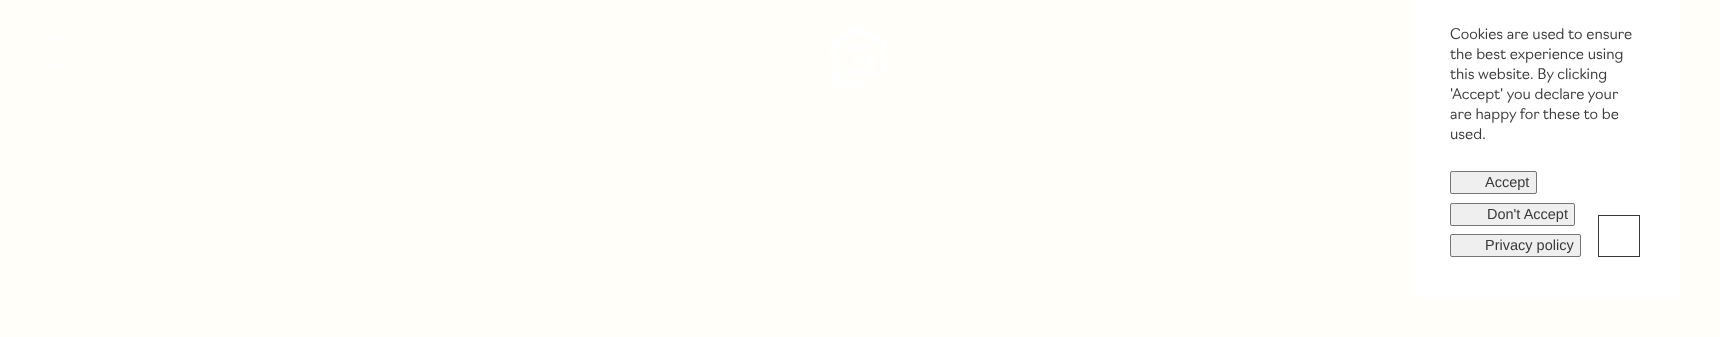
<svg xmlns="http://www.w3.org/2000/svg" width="1720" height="337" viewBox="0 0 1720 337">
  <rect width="100%" height="100%" fill="#fffef8"/>
  <path d="M48 58L57.5 48.5L67 58M40.5 38.5H74.5M40.5 65.5H74.5" fill="none" stroke="#ffffff" stroke-width="1.5"/>
  <image x="830" y="24" width="57" height="65" href="img1.png"/>
  <rect x="1410" y="0" width="270" height="297" fill="#ffffff"/>
  <text x="1450" y="39" font-family="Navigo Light" font-size="14.5" font-weight="300" fill="#3a3a3a">Cookies are used to ensure</text>
  <text x="1450" y="59" font-family="Navigo Light" font-size="14.5" font-weight="300" fill="#3a3a3a">the best experience using</text>
  <text x="1450" y="79" font-family="Navigo Light" font-size="14.5" font-weight="300" fill="#3a3a3a">this website. By clicking</text>
  <text x="1450" y="99" font-family="Navigo Light" font-size="14.5" font-weight="300" fill="#3a3a3a">'Accept' you declare your</text>
  <text x="1450" y="119" font-family="Navigo Light" font-size="14.5" font-weight="300" fill="#3a3a3a">are happy for these to be</text>
  <text x="1450" y="139" font-family="Navigo Light" font-size="14.5" font-weight="300" fill="#3a3a3a">used.</text>
  <rect x="1450.5" y="171.5" width="86" height="22" rx="1.5" fill="#efefef" stroke="#767676"/>
  <text x="1485" y="187" font-family="Liberation Sans" font-size="14.5" fill="#3a3a3a">Accept</text>
  <rect x="1450.5" y="203.5" width="124" height="22" rx="1.5" fill="#efefef" stroke="#767676"/>
  <text x="1487" y="219" font-family="Liberation Sans" font-size="14.5" fill="#3a3a3a">Don't Accept</text>
  <rect x="1450.5" y="234.5" width="130" height="22" rx="1.5" fill="#efefef" stroke="#767676"/>
  <text x="1485" y="250" font-family="Liberation Sans" font-size="14.5" fill="#3a3a3a">Privacy policy</text>
  <rect x="1598.5" y="215.5" width="41" height="41" fill="none" stroke="#3a3a3a"/>
</svg>
